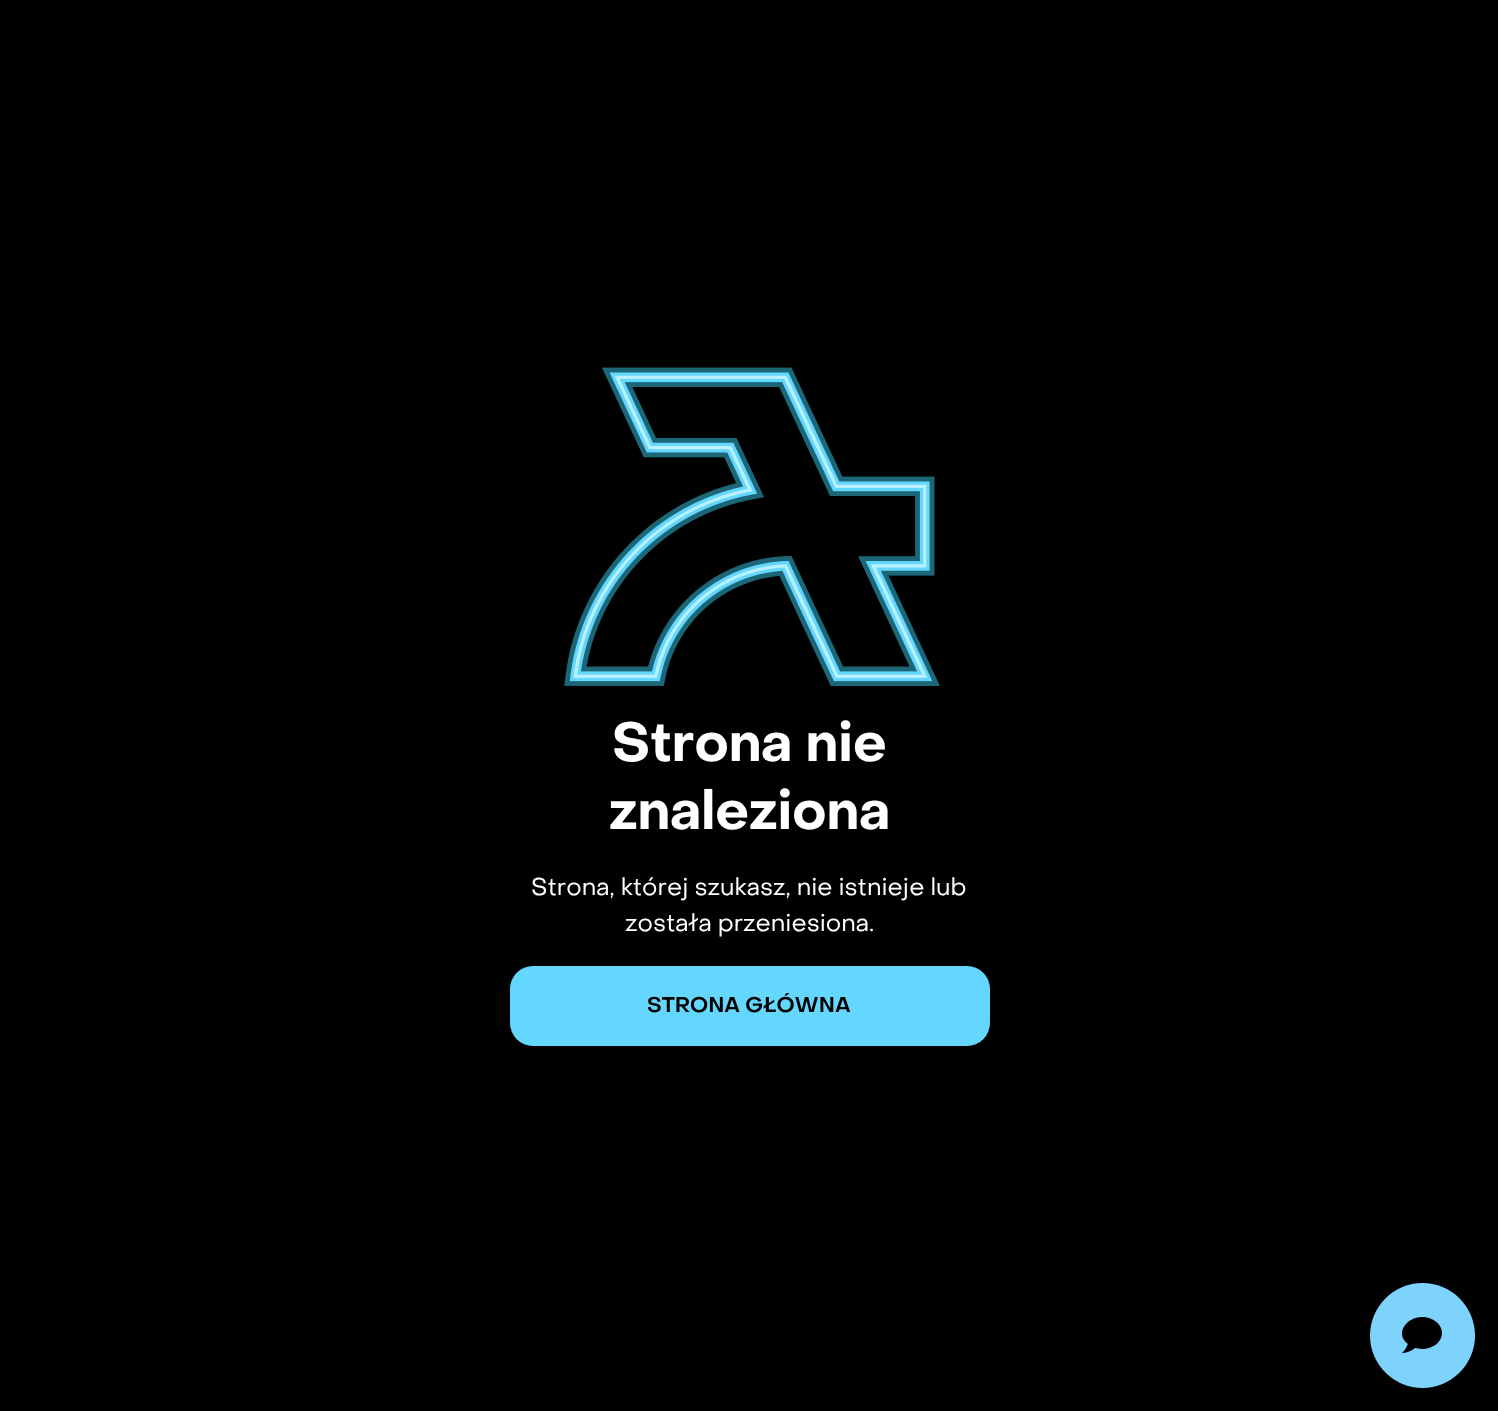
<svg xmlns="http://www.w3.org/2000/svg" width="1498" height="1411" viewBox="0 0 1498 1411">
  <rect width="100%" height="100%" fill="#000000"/>
  <image x="564" y="367" width="376" height="319" href="img1.png"/>
  <text x="612" y="761" font-family="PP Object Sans" font-size="54" font-weight="bold" fill="#ffffff">Strona nie</text>
  <text x="609" y="829" font-family="PP Object Sans" font-size="54" font-weight="bold" fill="#ffffff">znaleziona</text>
  <text x="531" y="895" font-family="PP Object Sans" font-size="24" fill="#ffffff">Strona, której szukasz, nie istnieje lub</text>
  <text x="625" y="931" font-family="PP Object Sans" font-size="24" fill="#ffffff">została przeniesiona.</text>
  <rect x="510" y="966" width="480" height="80" rx="23" fill="#64d7ff"/>
  <text x="647" y="1012" font-family="PP Object Sans" font-size="21" font-weight="600" fill="#000000">STRONA GŁÓWNA</text>
  <circle cx="1422.5" cy="1335.5" r="52.5" fill="#7dd3fc"/>
  <path d="M1422 1317C1433 1317 1442 1324 1442 1333C1442 1342 1433 1349 1422 1349L1415 1348C1409 1353 1402 1353 1402 1353C1407 1348 1407 1345 1408 1344C1394 1333 1407 1317 1422 1317" fill="#000000"/>
</svg>
